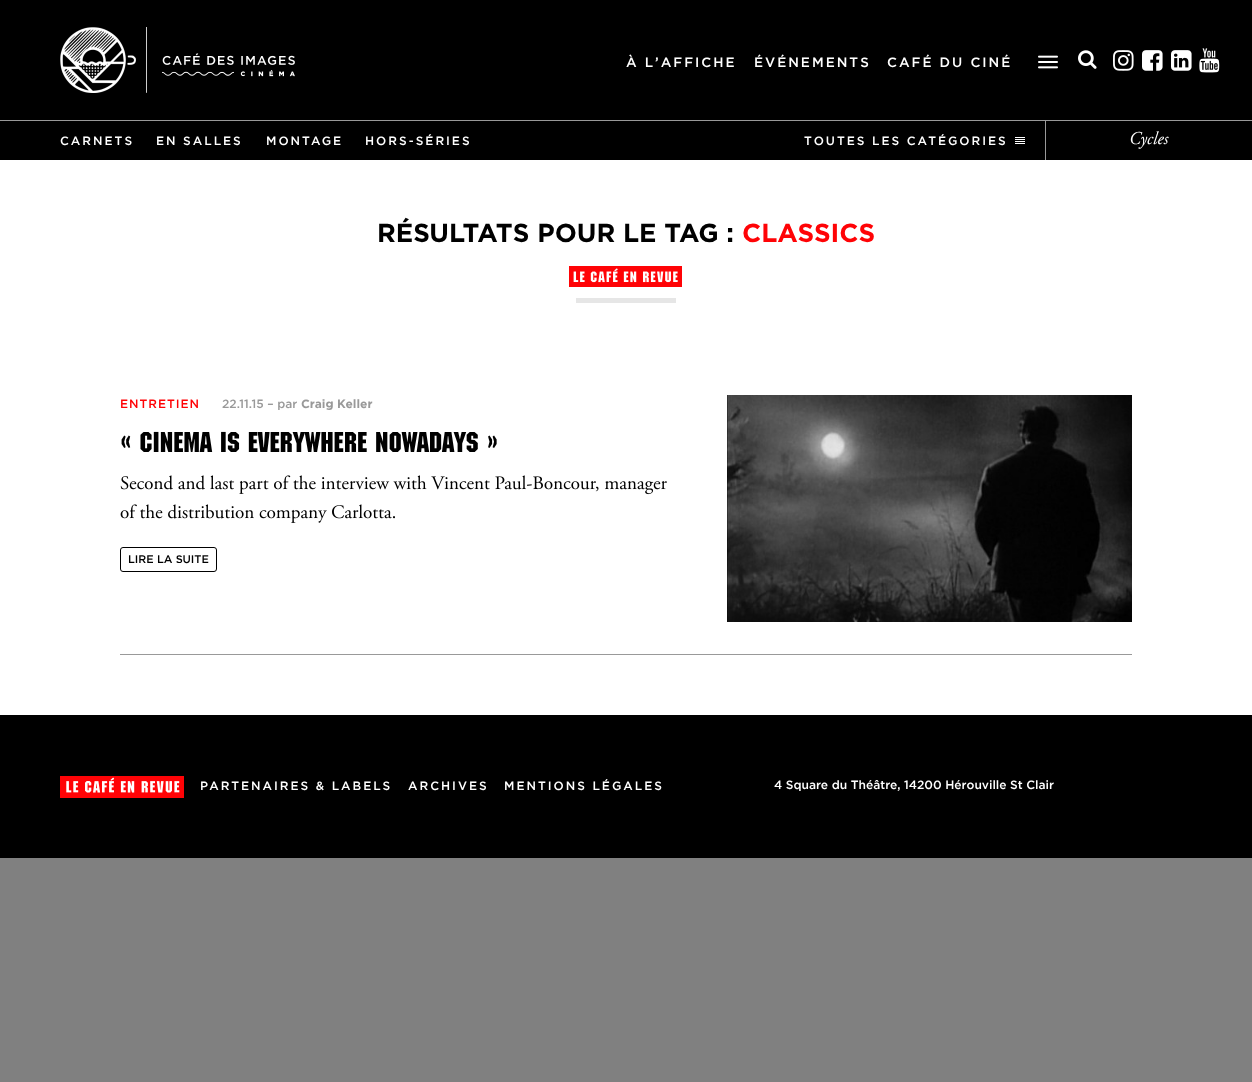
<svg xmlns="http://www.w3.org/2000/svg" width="1252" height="1082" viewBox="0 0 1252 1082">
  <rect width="100%" height="100%" fill="#808080"/>
  <rect x="0" y="0" width="1252" height="120" fill="#000000"/>
  <image x="60" y="27" width="235" height="66" href="img1.png"/>
  <text x="626" y="67" font-family="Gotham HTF" font-size="13.5" font-weight="500" letter-spacing="2" fill="#ffffff">À L’AFFICHE</text>
  <text x="754" y="67" font-family="Gotham HTF" font-size="13.5" font-weight="500" letter-spacing="2" fill="#ffffff">ÉVÉNEMENTS</text>
  <text x="887" y="67" font-family="Gotham HTF" font-size="13.5" font-weight="500" letter-spacing="2" fill="#ffffff">CAFÉ DU CINÉ</text>
  <image x="1038" y="55" width="20" height="14" href="img2.png"/>
  <image x="1078" y="50" width="19" height="19" href="img3.png"/>
  <image x="1113" y="50" width="21" height="21" href="img4.png"/>
  <image x="1142" y="50" width="21" height="21" href="img5.png"/>
  <image x="1171" y="50" width="21" height="21" href="img6.png"/>
  <image x="1199" y="48" width="21" height="25" href="img7.png"/>
  <rect x="0" y="121" width="1252" height="39" fill="#000000"/>
  <rect x="0" y="120" width="1252" height="1" fill="#999999"/>
  <text x="60" y="145" font-family="Gotham HTF" font-size="12" font-weight="500" letter-spacing="2" fill="#ffffff">CARNETS</text>
  <text x="156" y="145" font-family="Gotham HTF" font-size="12" font-weight="500" letter-spacing="2" fill="#ffffff">EN SALLES</text>
  <text x="266" y="145" font-family="Gotham HTF" font-size="12" font-weight="500" letter-spacing="2" fill="#ffffff">MONTAGE</text>
  <text x="365" y="145" font-family="Gotham HTF" font-size="12" font-weight="500" letter-spacing="2" fill="#ffffff">HORS-SÉRIES</text>
  <text x="804" y="145" font-family="Gotham HTF" font-size="12" font-weight="500" letter-spacing="2" fill="#ffffff">TOUTES LES CATÉGORIES</text>
  <image x="1015" y="137" width="10" height="7" href="img8.png"/>
  <rect x="1045" y="121" width="1" height="39" fill="#999999"/>
  <text x="1129" y="144" font-family="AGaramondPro" font-size="18" font-style="italic" fill="#ffffff">Cycles</text>
  <rect x="0" y="160" width="1252" height="555" fill="#ffffff"/>
  <text x="377" y="242" font-family="Gotham HTF" font-size="26" font-weight="bold" fill="#000000">RÉSULTATS POUR LE TAG :</text>
  <text x="742" y="242" font-family="Gotham HTF" font-size="26" font-weight="bold" fill="#ff0306">CLASSICS</text>
  <image x="569" y="266" width="113" height="21" href="img9.png"/>
  <rect x="576" y="298" width="100" height="5" fill="#e6e6e6"/>
  <rect x="120" y="654" width="1012" height="1" fill="#999999"/>
  <text x="120" y="408" font-family="Gotham HTF" font-size="12" font-weight="500" letter-spacing="1" fill="#ff0306">ENTRETIEN</text>
  <text x="222" y="408" font-family="Gotham HTF" font-size="12" font-weight="500" fill="#999999">22.11.15 – par</text>
  <text x="301" y="408" font-family="Gotham HTF" font-size="12" font-weight="bold" fill="#999999">Craig Keller</text>
  <text x="120" y="452" font-family="'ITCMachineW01'" font-size="28" font-weight="500" fill="#000000">« CINEMA IS EVERYWHERE NOWADAYS »</text>
  <image x="120" y="475" width="547" height="20" href="img10.png"/>
  <image x="120" y="504" width="275" height="19" href="img11.png"/>
  <rect x="120.5" y="547.5" width="96" height="24" rx="2.5" fill="none" stroke="#000000"/>
  <text x="128" y="563" font-family="Gotham HTF" font-size="11" font-weight="500" fill="#000000">LIRE LA SUITE</text>
  <image x="727" y="395" width="405" height="227" href="img12.png"/>
  <rect x="0" y="715" width="1252" height="143" fill="#000000"/>
  <image x="60" y="776" width="124" height="22" href="img13.png"/>
  <text x="200" y="790" font-family="Gotham HTF" font-size="12" font-weight="500" letter-spacing="2" fill="#ffffff">PARTENAIRES &amp; LABELS</text>
  <text x="408" y="790" font-family="Gotham HTF" font-size="12" font-weight="500" letter-spacing="2" fill="#ffffff">ARCHIVES</text>
  <text x="504" y="790" font-family="Gotham HTF" font-size="12" font-weight="500" letter-spacing="2" fill="#ffffff">MENTIONS LÉGALES</text>
  <text x="774" y="789" font-family="Gotham HTF" font-size="12" font-weight="500" fill="#ffffff">4 Square du Théâtre, 14200 Hérouville St Clair</text>
</svg>
